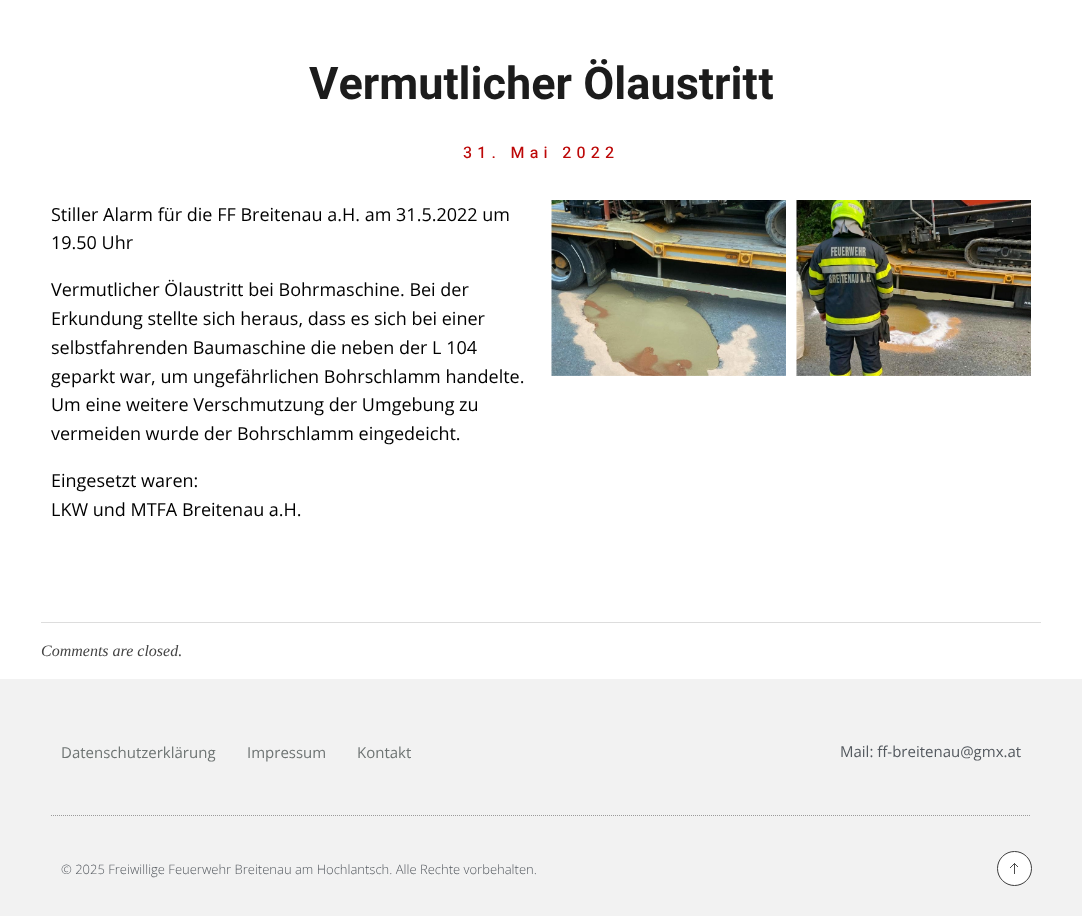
<svg xmlns="http://www.w3.org/2000/svg" width="1082" height="916" viewBox="0 0 1082 916">
  <rect width="100%" height="100%" fill="#ffffff"/>
  <text x="309" y="99" font-family="Heebo" font-size="45" font-weight="bold" fill="#1c1c1c">Vermutlicher Ölaustritt</text>
  <text x="463" y="158" font-family="Heebo" font-size="16" font-weight="500" letter-spacing="5.25" fill="#bd0808">31. Mai 2022</text>
  <text x="51" y="221" font-family="Open Sans" font-size="18" fill="#000000">Stiller Alarm für die FF Breitenau a.H. am 31.5.2022 um</text>
  <text x="51" y="249" font-family="Open Sans" font-size="18" fill="#000000">19.50 Uhr</text>
  <text x="51" y="296" font-family="Open Sans" font-size="18" fill="#000000">Vermutlicher Ölaustritt bei Bohrmaschine. Bei der</text>
  <text x="51" y="325" font-family="Open Sans" font-size="18" fill="#000000">Erkundung stellte sich heraus, dass es sich bei einer</text>
  <text x="51" y="354" font-family="Open Sans" font-size="18" fill="#000000">selbstfahrenden Baumaschine die neben der L 104</text>
  <text x="51" y="383" font-family="Open Sans" font-size="18" fill="#000000">geparkt war, um ungefährlichen Bohrschlamm handelte.</text>
  <text x="51" y="411" font-family="Open Sans" font-size="18" fill="#000000">Um eine weitere Verschmutzung der Umgebung zu</text>
  <text x="51" y="440" font-family="Open Sans" font-size="18" fill="#000000">vermeiden wurde der Bohrschlamm eingedeicht.</text>
  <text x="51" y="487" font-family="Open Sans" font-size="18" fill="#000000">Eingesetzt waren:</text>
  <text x="51" y="516" font-family="Open Sans" font-size="18" fill="#000000">LKW und MTFA Breitenau a.H.</text>
  <image x="551" y="200" width="235" height="176" href="img1.png"/>
  <image x="796" y="200" width="235" height="176" href="img2.png"/>
  <rect x="41" y="622" width="1000" height="1" fill="#dddddd"/>
  <text x="41" y="656" font-family="Liberation Serif" font-size="16" font-style="italic" fill="#444444">Comments are closed.</text>
  <rect x="0" y="679" width="1082" height="237" fill="#f2f2f2"/>
  <path d="M51 815.5H1031" fill="none" stroke="#9b9b9b" stroke-dasharray="1 1"/>
  <text x="61" y="758" font-family="Open Sans" font-size="15" fill="#6e7473">Datenschutzerklärung</text>
  <text x="247" y="758" font-family="Open Sans" font-size="15" fill="#6e7473">Impressum</text>
  <text x="357" y="758" font-family="Open Sans" font-size="15" fill="#6e7473">Kontakt</text>
  <text x="840" y="757" font-family="Open Sans" font-size="15" fill="#54595f">Mail: ff-breitenau@gmx.at</text>
  <text x="61" y="874" font-family="Open Sans" font-size="13" font-weight="300" fill="#54595f">© 2025 Freiwillige Feuerwehr Breitenau am Hochlantsch. Alle Rechte vorbehalten.</text>
  <circle cx="1014.5" cy="868.5" r="17" fill="#ffffff" stroke="#3d3d3d"/>
  <image x="1010" y="863" width="8" height="11" href="img3.png"/>
</svg>
